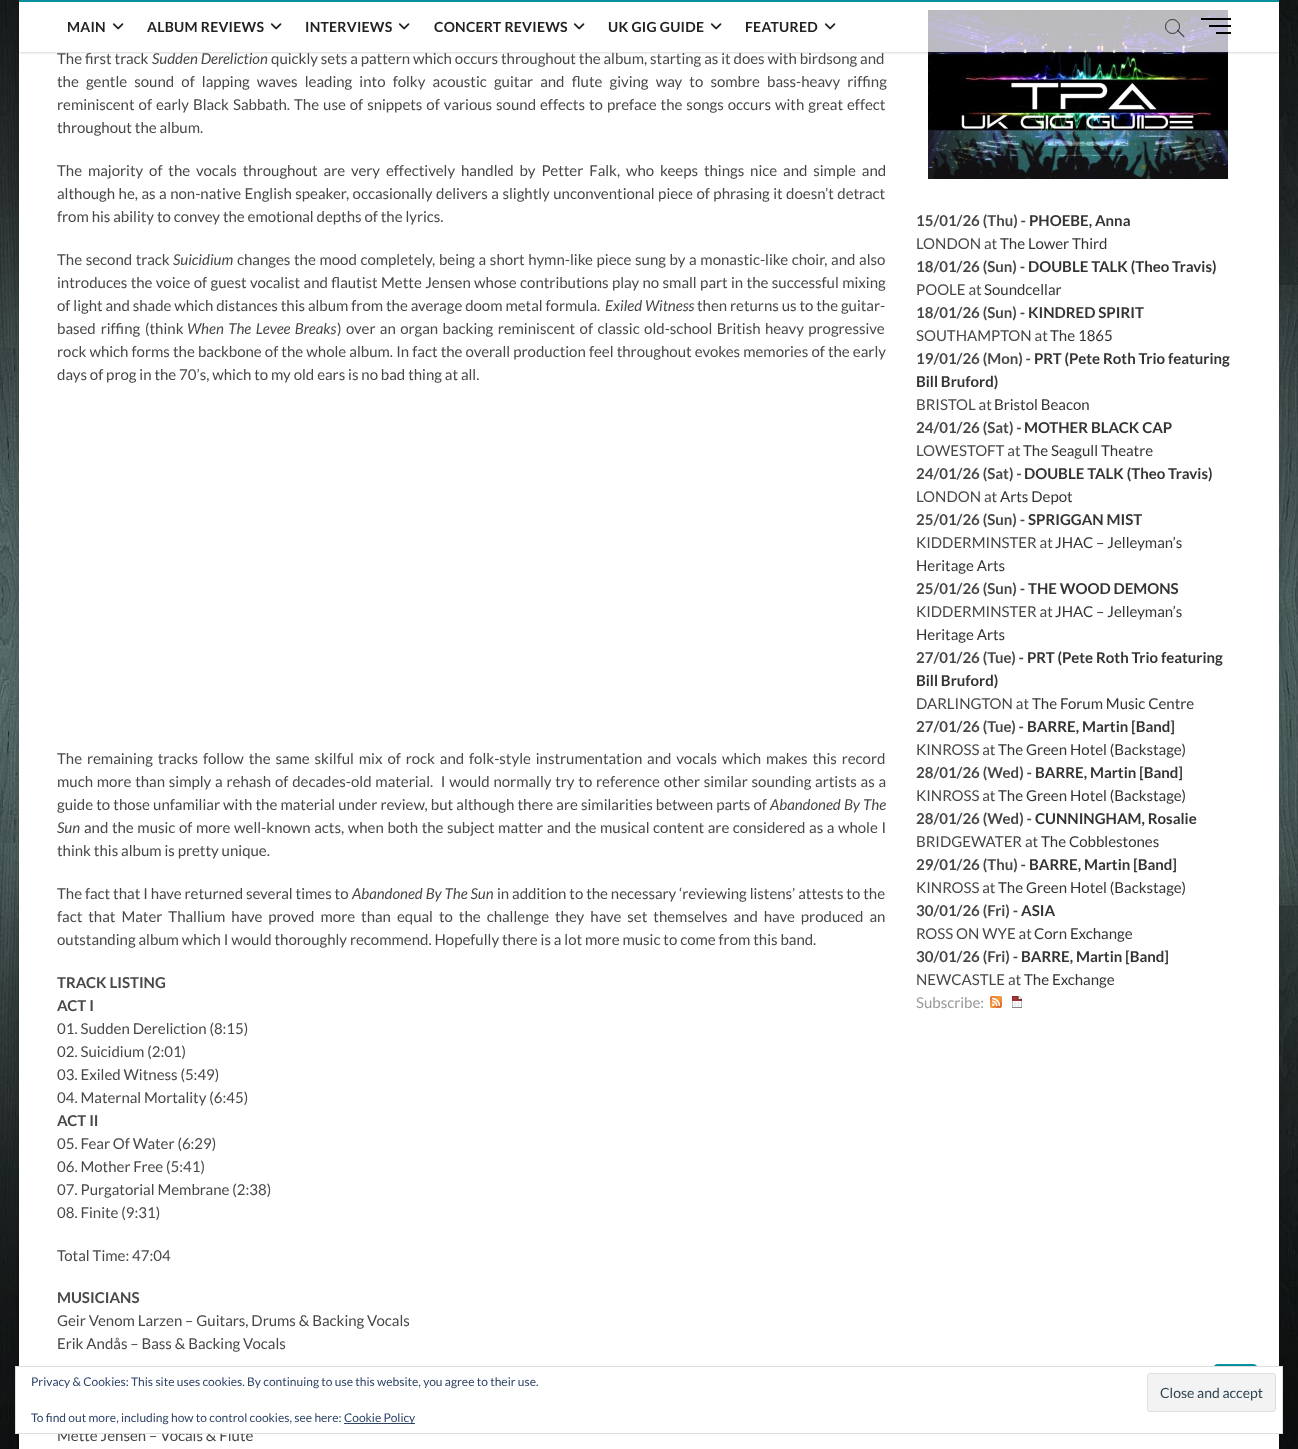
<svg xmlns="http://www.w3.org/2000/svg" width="1298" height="1449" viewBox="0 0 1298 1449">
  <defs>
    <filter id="blur1" x="-50%" y="-200%" width="200%" height="500%"><feGaussianBlur stdDeviation="3"/></filter>
    <clipPath id="clip1"><path d="M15 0H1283V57H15ZM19 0H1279V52H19Z" clip-rule="evenodd"/></clipPath>
    <filter id="blur2" x="-50%" y="-200%" width="200%" height="500%"><feGaussianBlur stdDeviation="1"/></filter>
  </defs>
  <rect width="100%" height="100%" fill="#ffffff"/>
  <image x="0" y="0" width="1298" height="1449" href="img1.png"/>
  <rect x="19" y="-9" width="1260" height="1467" fill="#000000" fill-opacity="0.15" filter="url(#blur1)"/>
  <rect x="19" y="2" width="1260" height="1447" fill="#ffffff"/>
  <image x="928" y="10" width="300" height="169" href="img3.png"/>
  <g clip-path="url(#clip1)">
    <rect x="19" y="1" width="1260" height="52" fill="#000000" fill-opacity="0.15" filter="url(#blur2)"/>
  </g>
  <rect x="928" y="10" width="300" height="42" fill="#ffffff" fill-opacity="0.7"/>
  <rect x="19" y="0" width="1260" height="2" fill="#0890a0"/>
  <text x="67" y="32" font-family="Lato" font-size="14" font-weight="bold" letter-spacing="0.25" fill="#222222">MAIN</text>
  <image x="112" y="23" width="12" height="7" href="img2.png"/>
  <text x="147" y="32" font-family="Lato" font-size="14" font-weight="bold" letter-spacing="0.25" fill="#222222">ALBUM REVIEWS</text>
  <image x="270" y="23" width="12" height="7" href="img2.png"/>
  <text x="305" y="32" font-family="Lato" font-size="14" font-weight="bold" letter-spacing="0.25" fill="#222222">INTERVIEWS</text>
  <image x="398" y="23" width="12" height="7" href="img2.png"/>
  <text x="434" y="32" font-family="Lato" font-size="14" font-weight="bold" letter-spacing="0.25" fill="#222222">CONCERT REVIEWS</text>
  <image x="573" y="23" width="12" height="7" href="img2.png"/>
  <text x="608" y="32" font-family="Lato" font-size="14" font-weight="bold" letter-spacing="0.25" fill="#222222">UK GIG GUIDE</text>
  <image x="710" y="23" width="12" height="7" href="img2.png"/>
  <text x="745" y="32" font-family="Lato" font-size="14" font-weight="bold" letter-spacing="0.25" fill="#222222">FEATURED</text>
  <image x="824" y="23" width="12" height="7" href="img2.png"/>
  <circle cx="1172.5" cy="26.5" r="7" fill="none" stroke="#333333"/>
  <path d="M1177 30.5L1177.5 29.5L1184.5 36.5L1184 37.5Z" fill="#333333"/>
  <rect x="1209" y="25" width="22" height="2" fill="#000000"/>
  <rect x="1201" y="18" width="30" height="2" fill="#000000"/>
  <rect x="1216" y="32" width="15" height="2" fill="#000000"/>
  <text x="57" y="64" font-family="Lato" font-size="15" fill="#484848">The first track</text>
  <text x="152" y="64" font-family="Lato" font-size="15" font-style="italic" fill="#484848">Sudden Dereliction</text>
  <text x="271" y="64" font-family="Lato" font-size="15" fill="#484848">quickly sets a pattern which occurs throughout the album, starting as it does with birdsong and</text>
  <text x="57" y="87" word-spacing="4.25" font-family="Lato" font-size="15" fill="#484848">the gentle sound of lapping waves leading into folky acoustic guitar and flute giving way to sombre bass-heavy riffing</text>
  <text x="57" y="110" word-spacing="1.1" font-family="Lato" font-size="15" fill="#484848">reminiscent of early Black Sabbath. The use of snippets of various sound effects to preface the songs occurs with great effect</text>
  <text x="57" y="133" font-family="Lato" font-size="15" fill="#484848">throughout the album.</text>
  <text x="57" y="176" word-spacing="3" font-family="Lato" font-size="15" fill="#484848">The majority of the vocals throughout are very effectively handled by Petter Falk, who keeps things nice and simple and</text>
  <text x="57" y="199" word-spacing="0.6" font-family="Lato" font-size="15" fill="#484848">although he, as a non-native English speaker, occasionally delivers a slightly unconventional piece of phrasing it doesn’t detract</text>
  <text x="57" y="222" font-family="Lato" font-size="15" fill="#484848">from his ability to convey the emotional depths of the lyrics.</text>
  <text x="57" y="265" word-spacing="0.75" font-family="Lato" font-size="15" fill="#484848">The second track</text>
  <text x="173" y="265" font-family="Lato" font-size="15" font-style="italic" fill="#484848">Suicidium</text>
  <text x="237" y="265" word-spacing="0.75" font-family="Lato" font-size="15" fill="#484848">changes the mood completely, being a short hymn-like piece sung by a monastic-like choir, and also</text>
  <text x="57" y="288" word-spacing="0.5" font-family="Lato" font-size="15" fill="#484848">introduces the voice of guest vocalist and flautist Mette Jensen whose contributions play no small part in the successful mixing</text>
  <text x="57" y="311" font-family="Lato" font-size="15" fill="#484848">of light and shade which distances this album from the average doom metal formula.</text>
  <text x="605" y="311" font-family="Lato" font-size="15" font-style="italic" fill="#484848">Exiled Witness</text>
  <text x="697" y="311" font-family="Lato" font-size="15" fill="#484848">then returns us to the guitar-</text>
  <text x="57" y="334" word-spacing="2" font-family="Lato" font-size="15" fill="#484848">based riffing (think</text>
  <text x="187" y="334" word-spacing="1.5" font-family="Lato" font-size="15" font-style="italic" fill="#484848">When The Levee Breaks</text>
  <text x="337" y="334" word-spacing="1.5" font-family="Lato" font-size="15" fill="#484848">) over an organ backing reminiscent of classic old-school British heavy progressive</text>
  <text x="57" y="357" word-spacing="0.25" font-family="Lato" font-size="15" fill="#484848">rock which forms the backbone of the whole album. In fact the overall production feel throughout evokes memories of the early</text>
  <text x="57" y="380" font-family="Lato" font-size="15" fill="#484848">days of prog in the 70’s, which to my old ears is no bad thing at all.</text>
  <text x="57" y="764" word-spacing="2" font-family="Lato" font-size="15" fill="#484848">The remaining tracks follow the same skilful mix of rock and folk-style instrumentation and vocals which makes this record</text>
  <text x="57" y="787" word-spacing="0.9" font-family="Lato" font-size="15" fill="#484848" xml:space="preserve">much more than simply a rehash of decades-old material.  I would normally try to reference other similar sounding artists as a</text>
  <text x="57" y="810" word-spacing="0.25" font-family="Lato" font-size="15" fill="#484848">guide to those unfamiliar with the material under review, but although there are similarities between parts of</text>
  <text x="770" y="810" word-spacing="0.25" font-family="Lato" font-size="15" font-style="italic" fill="#484848">Abandoned By The</text>
  <text x="57" y="833" font-family="Lato" font-size="15" font-style="italic" fill="#484848">Sun</text>
  <text x="84" y="833" word-spacing="0.7" font-family="Lato" font-size="15" fill="#484848">and the music of more well-known acts, when both the subject matter and the musical content are considered as a whole I</text>
  <text x="57" y="856" font-family="Lato" font-size="15" fill="#484848">think this album is pretty unique.</text>
  <text x="57" y="899" font-family="Lato" font-size="15" fill="#484848">The fact that I have returned several times to</text>
  <text x="352" y="899" font-family="Lato" font-size="15" font-style="italic" fill="#484848">Abandoned By The Sun</text>
  <text x="497" y="899" font-family="Lato" font-size="15" fill="#484848">in addition to the necessary ‘reviewing listens’ attests to the</text>
  <text x="57" y="922" word-spacing="3.1" font-family="Lato" font-size="15" fill="#484848">fact that Mater Thallium have proved more than equal to the challenge they have set themselves and have produced an</text>
  <text x="57" y="945" font-family="Lato" font-size="15" fill="#484848">outstanding album which I would thoroughly recommend. Hopefully there is a lot more music to come from this band.</text>
  <text x="57" y="988" font-family="Lato" font-size="15" font-weight="bold" fill="#484848">TRACK LISTING</text>
  <text x="57" y="1011" font-family="Lato" font-size="15" font-weight="bold" fill="#484848">ACT I</text>
  <text x="57" y="1034" font-family="Lato" font-size="15" fill="#484848">01. Sudden Dereliction (8:15)</text>
  <text x="57" y="1057" font-family="Lato" font-size="15" fill="#484848">02. Suicidium (2:01)</text>
  <text x="57" y="1080" font-family="Lato" font-size="15" fill="#484848">03. Exiled Witness (5:49)</text>
  <text x="57" y="1103" font-family="Lato" font-size="15" fill="#484848">04. Maternal Mortality (6:45)</text>
  <text x="57" y="1126" font-family="Lato" font-size="15" font-weight="bold" fill="#484848">ACT II</text>
  <text x="57" y="1149" font-family="Lato" font-size="15" fill="#484848">05. Fear Of Water (6:29)</text>
  <text x="57" y="1172" font-family="Lato" font-size="15" fill="#484848">06. Mother Free (5:41)</text>
  <text x="57" y="1195" font-family="Lato" font-size="15" fill="#484848">07. Purgatorial Membrane (2:38)</text>
  <text x="57" y="1218" font-family="Lato" font-size="15" fill="#484848">08. Finite (9:31)</text>
  <text x="57" y="1261" font-family="Lato" font-size="15" fill="#484848">Total Time: 47:04</text>
  <text x="57" y="1303" font-family="Lato" font-size="15" font-weight="bold" fill="#484848">MUSICIANS</text>
  <text x="57" y="1326" font-family="Lato" font-size="15" fill="#484848">Geir Venom Larzen – Guitars, Drums &amp; Backing Vocals</text>
  <text x="57" y="1349" font-family="Lato" font-size="15" fill="#484848">Erik Andås – Bass &amp; Backing Vocals</text>
  <text x="57" y="1441" font-family="Lato" font-size="15" fill="#484848">Mette Jensen – Vocals &amp; Flute</text>
  <text x="916" y="226" font-family="Lato" font-size="15" font-weight="bold" fill="#484848">15/01/26 (Thu) -</text>
  <text x="1029" y="226" font-family="Lato" font-size="15" font-weight="bold" fill="#343434">PHOEBE, Anna</text>
  <text x="916" y="249" font-family="Lato" font-size="15" fill="#484848">LONDON at</text>
  <text x="1000" y="249" font-family="Lato" font-size="15" fill="#343434">The Lower Third</text>
  <text x="916" y="272" font-family="Lato" font-size="15" font-weight="bold" fill="#484848">18/01/26 (Sun) -</text>
  <text x="1028" y="272" font-family="Lato" font-size="15" font-weight="bold" fill="#343434">DOUBLE TALK (Theo Travis)</text>
  <text x="916" y="295" font-family="Lato" font-size="15" fill="#484848">POOLE at</text>
  <text x="984" y="295" font-family="Lato" font-size="15" fill="#343434">Soundcellar</text>
  <text x="916" y="318" font-family="Lato" font-size="15" font-weight="bold" fill="#484848">18/01/26 (Sun) -</text>
  <text x="1028" y="318" font-family="Lato" font-size="15" font-weight="bold" fill="#343434">KINDRED SPIRIT</text>
  <text x="916" y="341" font-family="Lato" font-size="15" fill="#484848">SOUTHAMPTON at</text>
  <text x="1050" y="341" font-family="Lato" font-size="15" fill="#343434">The 1865</text>
  <text x="916" y="364" font-family="Lato" font-size="15" font-weight="bold" fill="#484848">19/01/26 (Mon) -</text>
  <text x="1034" y="364" font-family="Lato" font-size="15" font-weight="bold" fill="#343434">PRT (Pete Roth Trio featuring</text>
  <text x="916" y="387" font-family="Lato" font-size="15" font-weight="bold" fill="#343434">Bill Bruford)</text>
  <text x="916" y="410" font-family="Lato" font-size="15" fill="#484848">BRISTOL at</text>
  <text x="994" y="410" font-family="Lato" font-size="15" fill="#343434">Bristol Beacon</text>
  <text x="916" y="433" font-family="Lato" font-size="15" font-weight="bold" fill="#484848">24/01/26 (Sat) -</text>
  <text x="1024" y="433" font-family="Lato" font-size="15" font-weight="bold" fill="#343434">MOTHER BLACK CAP</text>
  <text x="916" y="456" font-family="Lato" font-size="15" fill="#484848">LOWESTOFT at</text>
  <text x="1023" y="456" font-family="Lato" font-size="15" fill="#343434">The Seagull Theatre</text>
  <text x="916" y="479" font-family="Lato" font-size="15" font-weight="bold" fill="#484848">24/01/26 (Sat) -</text>
  <text x="1024" y="479" font-family="Lato" font-size="15" font-weight="bold" fill="#343434">DOUBLE TALK (Theo Travis)</text>
  <text x="916" y="502" font-family="Lato" font-size="15" fill="#484848">LONDON at</text>
  <text x="1000" y="502" font-family="Lato" font-size="15" fill="#343434">Arts Depot</text>
  <text x="916" y="525" font-family="Lato" font-size="15" font-weight="bold" fill="#484848">25/01/26 (Sun) -</text>
  <text x="1028" y="525" font-family="Lato" font-size="15" font-weight="bold" fill="#343434">SPRIGGAN MIST</text>
  <text x="916" y="548" font-family="Lato" font-size="15" fill="#484848">KIDDERMINSTER at</text>
  <text x="1055" y="548" font-family="Lato" font-size="15" fill="#343434">JHAC – Jelleyman’s</text>
  <text x="916" y="571" font-family="Lato" font-size="15" fill="#343434">Heritage Arts</text>
  <text x="916" y="594" font-family="Lato" font-size="15" font-weight="bold" fill="#484848">25/01/26 (Sun) -</text>
  <text x="1028" y="594" font-family="Lato" font-size="15" font-weight="bold" fill="#343434">THE WOOD DEMONS</text>
  <text x="916" y="617" font-family="Lato" font-size="15" fill="#484848">KIDDERMINSTER at</text>
  <text x="1055" y="617" font-family="Lato" font-size="15" fill="#343434">JHAC – Jelleyman’s</text>
  <text x="916" y="640" font-family="Lato" font-size="15" fill="#343434">Heritage Arts</text>
  <text x="916" y="663" font-family="Lato" font-size="15" font-weight="bold" fill="#484848">27/01/26 (Tue) -</text>
  <text x="1027" y="663" font-family="Lato" font-size="15" font-weight="bold" fill="#343434">PRT (Pete Roth Trio featuring</text>
  <text x="916" y="686" font-family="Lato" font-size="15" font-weight="bold" fill="#343434">Bill Bruford)</text>
  <text x="916" y="709" font-family="Lato" font-size="15" fill="#484848">DARLINGTON at</text>
  <text x="1032" y="709" font-family="Lato" font-size="15" fill="#343434">The Forum Music Centre</text>
  <text x="916" y="732" font-family="Lato" font-size="15" font-weight="bold" fill="#484848">27/01/26 (Tue) -</text>
  <text x="1027" y="732" font-family="Lato" font-size="15" font-weight="bold" fill="#343434">BARRE, Martin [Band]</text>
  <text x="916" y="755" font-family="Lato" font-size="15" fill="#484848">KINROSS at</text>
  <text x="998" y="755" font-family="Lato" font-size="15" fill="#343434">The Green Hotel (Backstage)</text>
  <text x="916" y="778" font-family="Lato" font-size="15" font-weight="bold" fill="#484848">28/01/26 (Wed) -</text>
  <text x="1035" y="778" font-family="Lato" font-size="15" font-weight="bold" fill="#343434">BARRE, Martin [Band]</text>
  <text x="916" y="801" font-family="Lato" font-size="15" fill="#484848">KINROSS at</text>
  <text x="998" y="801" font-family="Lato" font-size="15" fill="#343434">The Green Hotel (Backstage)</text>
  <text x="916" y="824" font-family="Lato" font-size="15" font-weight="bold" fill="#484848">28/01/26 (Wed) -</text>
  <text x="1035" y="824" font-family="Lato" font-size="15" font-weight="bold" fill="#343434">CUNNINGHAM, Rosalie</text>
  <text x="916" y="847" font-family="Lato" font-size="15" fill="#484848">BRIDGEWATER at</text>
  <text x="1041" y="847" font-family="Lato" font-size="15" fill="#343434">The Cobblestones</text>
  <text x="916" y="870" font-family="Lato" font-size="15" font-weight="bold" fill="#484848">29/01/26 (Thu) -</text>
  <text x="1029" y="870" font-family="Lato" font-size="15" font-weight="bold" fill="#343434">BARRE, Martin [Band]</text>
  <text x="916" y="893" font-family="Lato" font-size="15" fill="#484848">KINROSS at</text>
  <text x="998" y="893" font-family="Lato" font-size="15" fill="#343434">The Green Hotel (Backstage)</text>
  <text x="916" y="916" font-family="Lato" font-size="15" font-weight="bold" fill="#484848">30/01/26 (Fri) -</text>
  <text x="1021" y="916" font-family="Lato" font-size="15" font-weight="bold" fill="#343434">ASIA</text>
  <text x="916" y="939" font-family="Lato" font-size="15" fill="#484848">ROSS ON WYE at</text>
  <text x="1034" y="939" font-family="Lato" font-size="15" fill="#343434">Corn Exchange</text>
  <text x="916" y="962" font-family="Lato" font-size="15" font-weight="bold" fill="#484848">30/01/26 (Fri) -</text>
  <text x="1021" y="962" font-family="Lato" font-size="15" font-weight="bold" fill="#343434">BARRE, Martin [Band]</text>
  <text x="916" y="985" font-family="Lato" font-size="15" fill="#484848">NEWCASTLE at</text>
  <text x="1024" y="985" font-family="Lato" font-size="15" fill="#343434">The Exchange</text>
  <text x="916" y="1008" font-family="Lato" font-size="15" fill="#999999">Subscribe:</text>
  <image x="990" y="996" width="12" height="12" href="img4.png"/>
  <image x="1012" y="996" width="10" height="12" href="img5.png"/>
  <rect x="1213" y="1364" width="45" height="45" rx="5" fill="#0890a0"/>
  <rect x="15.5" y="1366.5" width="1267" height="67" fill="#ffffff" stroke="#dedede"/>
  <text x="31" y="1386" font-family="Lato" font-size="12" fill="#2e4467">Privacy &amp; Cookies: This site uses cookies. By continuing to use this website, you agree to their use.</text>
  <rect x="1147.5" y="1373.5" width="128" height="38" rx="2.5" fill="#f3f3f3" stroke="#dedede"/>
  <text x="1160" y="1398" font-family="Lato" font-size="14" fill="#2e4453">Close and accept</text>
  <text x="31" y="1422" font-family="Lato" font-size="12" fill="#2e4467">To find out more, including how to control cookies, see here:</text>
  <rect x="344" y="1423" width="71" height="1" fill="#2e4467"/>
  <text x="344" y="1422" font-family="Lato" font-size="12" fill="#2e4467">Cookie Policy</text>
</svg>
